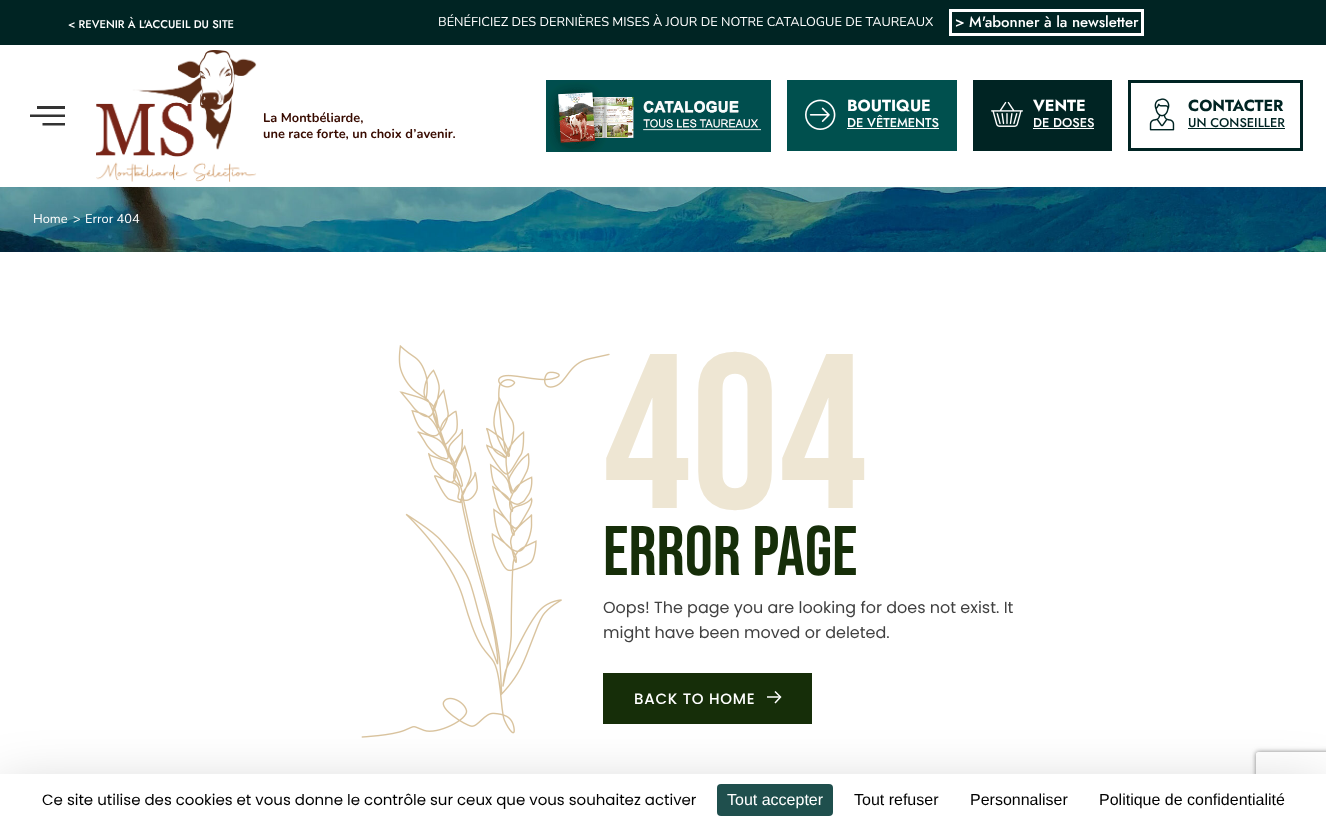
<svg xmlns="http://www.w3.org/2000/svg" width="1326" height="826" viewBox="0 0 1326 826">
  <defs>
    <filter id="blur1" x="-50%" y="-200%" width="200%" height="500%"><feGaussianBlur stdDeviation="30"/></filter>
    <clipPath id="clip1"><path d="M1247 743H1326V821H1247ZM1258 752H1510C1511 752 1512 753 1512 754V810C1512 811 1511 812 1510 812H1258C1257 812 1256 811 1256 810V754C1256 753 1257 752 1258 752Z" clip-rule="evenodd"/></clipPath>
    <filter id="blur2" x="-50%" y="-200%" width="200%" height="500%"><feGaussianBlur stdDeviation="2.5"/></filter>
  </defs>
  <rect width="100%" height="100%" fill="#ffffff"/>
  <rect x="0" y="0" width="1326" height="45" fill="#002423"/>
  <text x="68" y="28" font-family="Jost" font-size="11.25" font-weight="500" fill="#ffffff">&lt; REVENIR À L'ACCUEIL DU SITE</text>
  <text x="438" y="26" font-family="Nunito" font-size="12.8" fill="#ffffff">BÉNÉFICIEZ DES DERNIÈRES MISES À JOUR DE NOTRE CATALOGUE DE TAUREAUX</text>
  <rect x="950.5" y="10.5" width="192" height="24" fill="none" stroke="#ffffff" stroke-width="3"/>
  <text x="955" y="27" font-family="Jost" font-size="15" font-weight="500" fill="#ffffff">&gt; M'abonner à la newsletter</text>
  <path d="M30 117H65V114.5H30ZM42.5 125.5H65V123H42.5ZM37 106V109H65V106Z" fill="#333333"/>
  <image x="96" y="50" width="161" height="132" href="img1.png"/>
  <text x="263" y="122" font-family="Nunito" font-size="12.8" font-weight="bold" fill="#380b00">La Montbéliarde,</text>
  <text x="263" y="138" font-family="Nunito" font-size="12.8" font-weight="bold" fill="#380b00">une race forte, un choix d’avenir.</text>
  <image x="546" y="80" width="225" height="72" href="img2.png"/>
  <rect x="787" y="80" width="170" height="71" fill="#00504e"/>
  <image x="805" y="99" width="31" height="31" href="img3.png"/>
  <text x="847" y="111" font-family="Jost" font-size="16" font-weight="bold" fill="#ffffff">BOUTIQUE</text>
  <text x="847" y="127" font-family="Jost" font-size="12.8" font-weight="500" fill="#ffffff">DE VÊTEMENTS</text>
  <rect x="847" y="128" width="92" height="1" fill="#ffffff"/>
  <rect x="973" y="80" width="139" height="71" fill="#002423"/>
  <image x="991" y="101" width="32" height="26" href="img4.png"/>
  <text x="1033" y="111" font-family="Jost" font-size="16" font-weight="bold" fill="#ffffff">VENTE</text>
  <text x="1033" y="127" font-family="Jost" font-size="12.8" font-weight="500" fill="#ffffff">DE DOSES</text>
  <rect x="1033" y="128" width="61" height="1" fill="#ffffff"/>
  <rect x="1129.5" y="81.5" width="172" height="68" fill="none" stroke="#002423" stroke-width="3"/>
  <image x="1149" y="98" width="26" height="33" href="img5.png"/>
  <text x="1188" y="111" font-family="Jost" font-size="16" font-weight="bold" fill="#002423">CONTACTER</text>
  <text x="1188" y="127" font-family="Jost" font-size="12.8" font-weight="500" fill="#002423">UN CONSEILLER</text>
  <rect x="1188" y="128" width="97" height="1" fill="#002423"/>
  <image x="0" y="187" width="1326" height="65" href="img6.png"/>
  <text x="33" y="223" font-family="Nunito" font-size="12.8" fill="#ffffff">Home</text>
  <text x="73" y="223" font-family="Nunito" font-size="12.8" fill="#ffffff">&gt;</text>
  <text x="85" y="223" font-family="Nunito" font-size="12.8" fill="#ffffff">Error 404</text>
  <text x="603" y="508" font-family="Bebas Neue" font-size="220" fill="#eee6d3">404</text>
  <text x="603" y="575" font-family="Bebas Neue" font-size="70" fill="#162e09">ERROR PAGE</text>
  <text x="603" y="613" font-family="Poppins" font-size="16" fill="#414141">Oops! The page you are looking for does not exist. It</text>
  <text x="603" y="638" font-family="Poppins" font-size="16" fill="#414141">might have been moved or deleted.</text>
  <image x="361" y="345" width="249" height="393" href="img7.png"/>
  <rect x="603" y="673" width="209" height="51" fill="#162e09"/>
  <text x="634" y="704" font-family="Poppins" font-size="15" font-weight="500" letter-spacing="0.75" fill="#ffffff">BACK TO HOME</text>
  <path d="M775 691.5L780.5 697L775 703" fill="none" stroke="#ffffff" stroke-width="1.5"/>
  <rect x="767" y="696" width="13" height="2" fill="#ffffff" fill-opacity="0.75"/>
  <rect x="0" y="794" width="1326" height="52" fill="#000000" fill-opacity="0.25" filter="url(#blur1)"/>
  <g clip-path="url(#clip1)">
    <rect x="1256" y="752" width="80" height="60" rx="2" fill="#808080" filter="url(#blur2)"/>
  </g>
  <rect x="0" y="774" width="1326" height="52" fill="#ffffff"/>
  <text x="42" y="805" font-family="Poppins" font-size="15" fill="#000000">Ce site utilise des cookies et vous donne le contrôle sur ceux que vous souhaitez activer</text>
  <rect x="717" y="784" width="116" height="32" rx="4" fill="#1f4f4d"/>
  <text x="727" y="805" font-family="Liberation Sans" font-size="16" fill="#ffffff">Tout accepter</text>
  <text x="854" y="805" font-family="Liberation Sans" font-size="16" fill="#000000">Tout refuser</text>
  <text x="970" y="805" font-family="Liberation Sans" font-size="16" fill="#000000">Personnaliser</text>
  <text x="1099" y="805" font-family="Liberation Sans" font-size="16" fill="#000000">Politique de confidentialité</text>
</svg>
